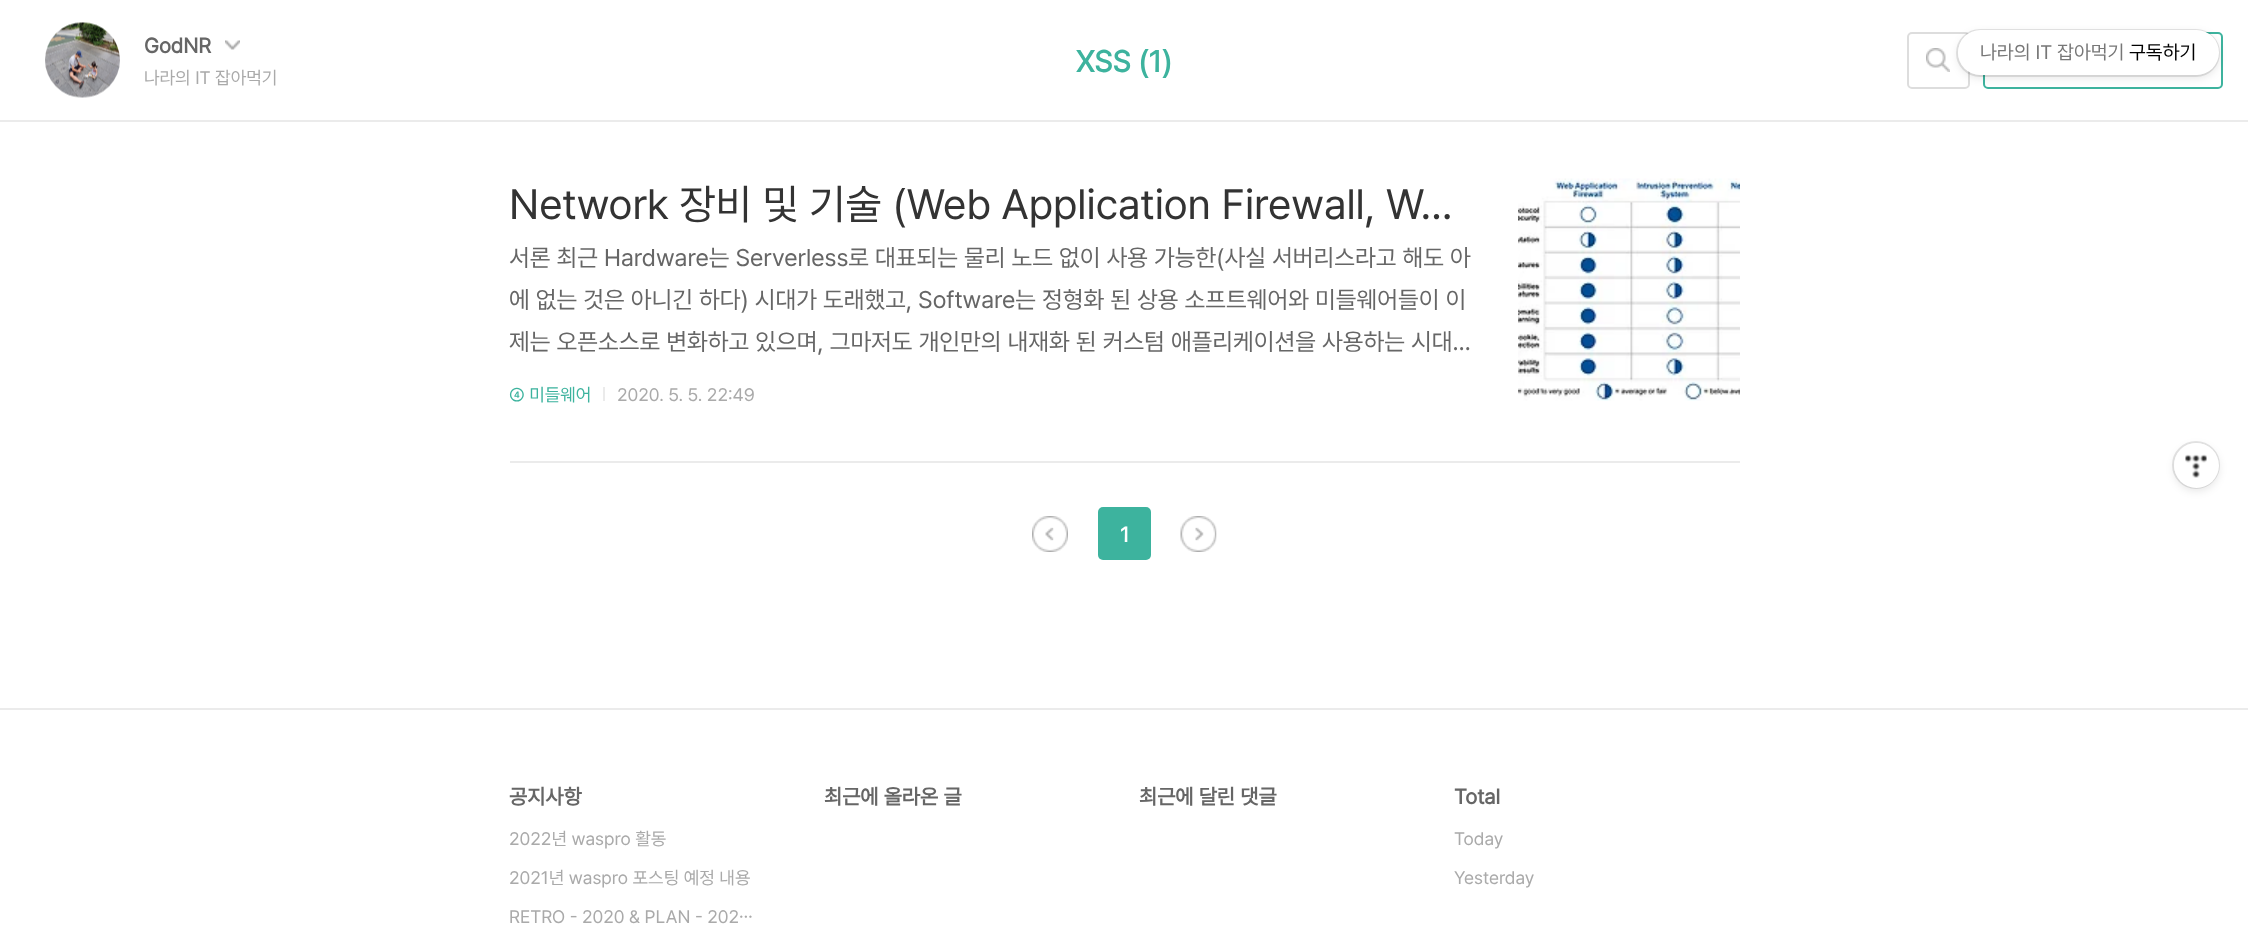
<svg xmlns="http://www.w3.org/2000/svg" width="2248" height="930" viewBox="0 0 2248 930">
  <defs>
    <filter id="blur1" x="-50%" y="-200%" width="200%" height="500%"><feGaussianBlur stdDeviation="4"/></filter>
  </defs>
  <rect width="100%" height="100%" fill="#ffffff"/>
  <rect x="0" y="120" width="2248" height="2" fill="#ebebeb"/>
  <image x="45" y="22" width="75" height="76" href="img1.png"/>
  <text x="144" y="53" font-family="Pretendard" font-size="21" font-weight="bold" fill="#666666">GodNR</text>
  <image x="225" y="40" width="15" height="10" href="img2.png"/>
  <text x="144" y="84" font-family="Pretendard" font-size="18" fill="#aaaaaa">나라의 IT 잡아먹기</text>
  <text x="1076" y="72" font-family="Pretendard" font-size="30" font-weight="bold" fill="#3db39e">XSS (1)</text>
  <rect x="1908" y="33" width="61" height="55" rx="4" fill="none" stroke="#dddddd" stroke-width="2"/>
  <image x="1926" y="48" width="24" height="24" href="img3.png"/>
  <rect x="1984" y="33" width="238" height="55" rx="4" fill="none" stroke="#3db39e" stroke-width="2"/>
  <rect x="510" y="461" width="1230" height="2" fill="#ebebeb"/>
  <text x="509" y="219" font-family="Pretendard" font-size="42" fill="#333333">Network 장비 및 기술 (Web Application Firewall, W…</text>
  <text x="509" y="266" font-family="Pretendard" font-size="24" fill="#666666">서론 최근 Hardware는 Serverless로 대표되는 물리 노드 없이 사용 가능한(사실 서버리스라고 해도 아</text>
  <text x="509" y="308" font-family="Pretendard" font-size="24" fill="#666666">에 없는 것은 아니긴 하다) 시대가 도래했고, Software는 정형화 된 상용 소프트웨어와 미들웨어들이 이</text>
  <text x="509" y="350" font-family="Pretendard" font-size="24" fill="#666666">제는 오픈소스로 변화하고 있으며, 그마저도 개인만의 내재화 된 커스텀 애플리케이션을 사용하는 시대…</text>
  <image x="1518" y="178" width="222" height="223" href="img4.png"/>
  <text x="509" y="401" font-family="Pretendard" font-size="18" fill="#3db39e">④ 미들웨어</text>
  <rect x="603" y="387" width="2" height="14" fill="#ebebeb"/>
  <text x="617" y="401" font-family="Pretendard" font-size="18" fill="#aaaaaa">2020. 5. 5. 22:49</text>
  <image x="1032" y="516" width="36" height="36" href="img5.png"/>
  <rect x="1098" y="507" width="53" height="53" rx="5" fill="#3db39e"/>
  <text x="1120" y="542" font-family="Pretendard" font-size="21" font-weight="bold" fill="#ffffff">1</text>
  <image x="1180" y="516" width="37" height="36" href="img6.png"/>
  <rect x="0" y="708" width="2248" height="2" fill="#ebebeb"/>
  <text x="509" y="804" font-family="Pretendard" font-size="21" font-weight="bold" fill="#666666">공지사항</text>
  <text x="509" y="845" font-family="Pretendard" font-size="18" fill="#aaaaaa">2022년 waspro 활동</text>
  <text x="509" y="884" font-family="Pretendard" font-size="18" fill="#aaaaaa">2021년 waspro 포스팅 예정 내용</text>
  <text x="509" y="923" font-family="Pretendard" font-size="18" fill="#aaaaaa">RETRO - 2020 &amp; PLAN - 202⋯</text>
  <text x="824" y="804" font-family="Pretendard" font-size="21" font-weight="bold" fill="#666666">최근에 올라온 글</text>
  <text x="1139" y="804" font-family="Pretendard" font-size="21" font-weight="bold" fill="#666666">최근에 달린 댓글</text>
  <text x="1454" y="804" font-family="Pretendard" font-size="21" font-weight="bold" fill="#666666">Total</text>
  <text x="1454" y="845" font-family="Pretendard" font-size="18" fill="#aaaaaa">Today</text>
  <text x="1454" y="884" font-family="Pretendard" font-size="18" fill="#aaaaaa">Yesterday</text>
  <rect x="1958" y="33" width="261" height="45" rx="22.5" fill="#000000" fill-opacity="0.1" filter="url(#blur1)"/>
  <rect x="1957" y="30" width="262" height="46" rx="23" fill="none" stroke="#000000" stroke-opacity="0.1" stroke-width="2"/>
  <rect x="1958" y="30" width="261" height="45" rx="22.5" fill="#ffffff"/>
  <text x="1980" y="59" font-family="Pretendard" font-size="19.5" fill="#777777">나라의 IT 잡아먹기</text>
  <text x="2129" y="59" font-family="Pretendard" font-size="19.5" fill="#000000">구독하기</text>
  <rect x="2174" y="446" width="45" height="45" rx="22.5" fill="#000000" fill-opacity="0.1" filter="url(#blur1)"/>
  <circle cx="2196" cy="465" r="23" fill="none" stroke="#000000" stroke-opacity="0.1" stroke-width="2"/>
  <circle cx="2196.5" cy="465.5" r="22.5" fill="#ffffff"/>
  <image x="2185" y="454" width="22" height="24" href="img7.png"/>
</svg>
